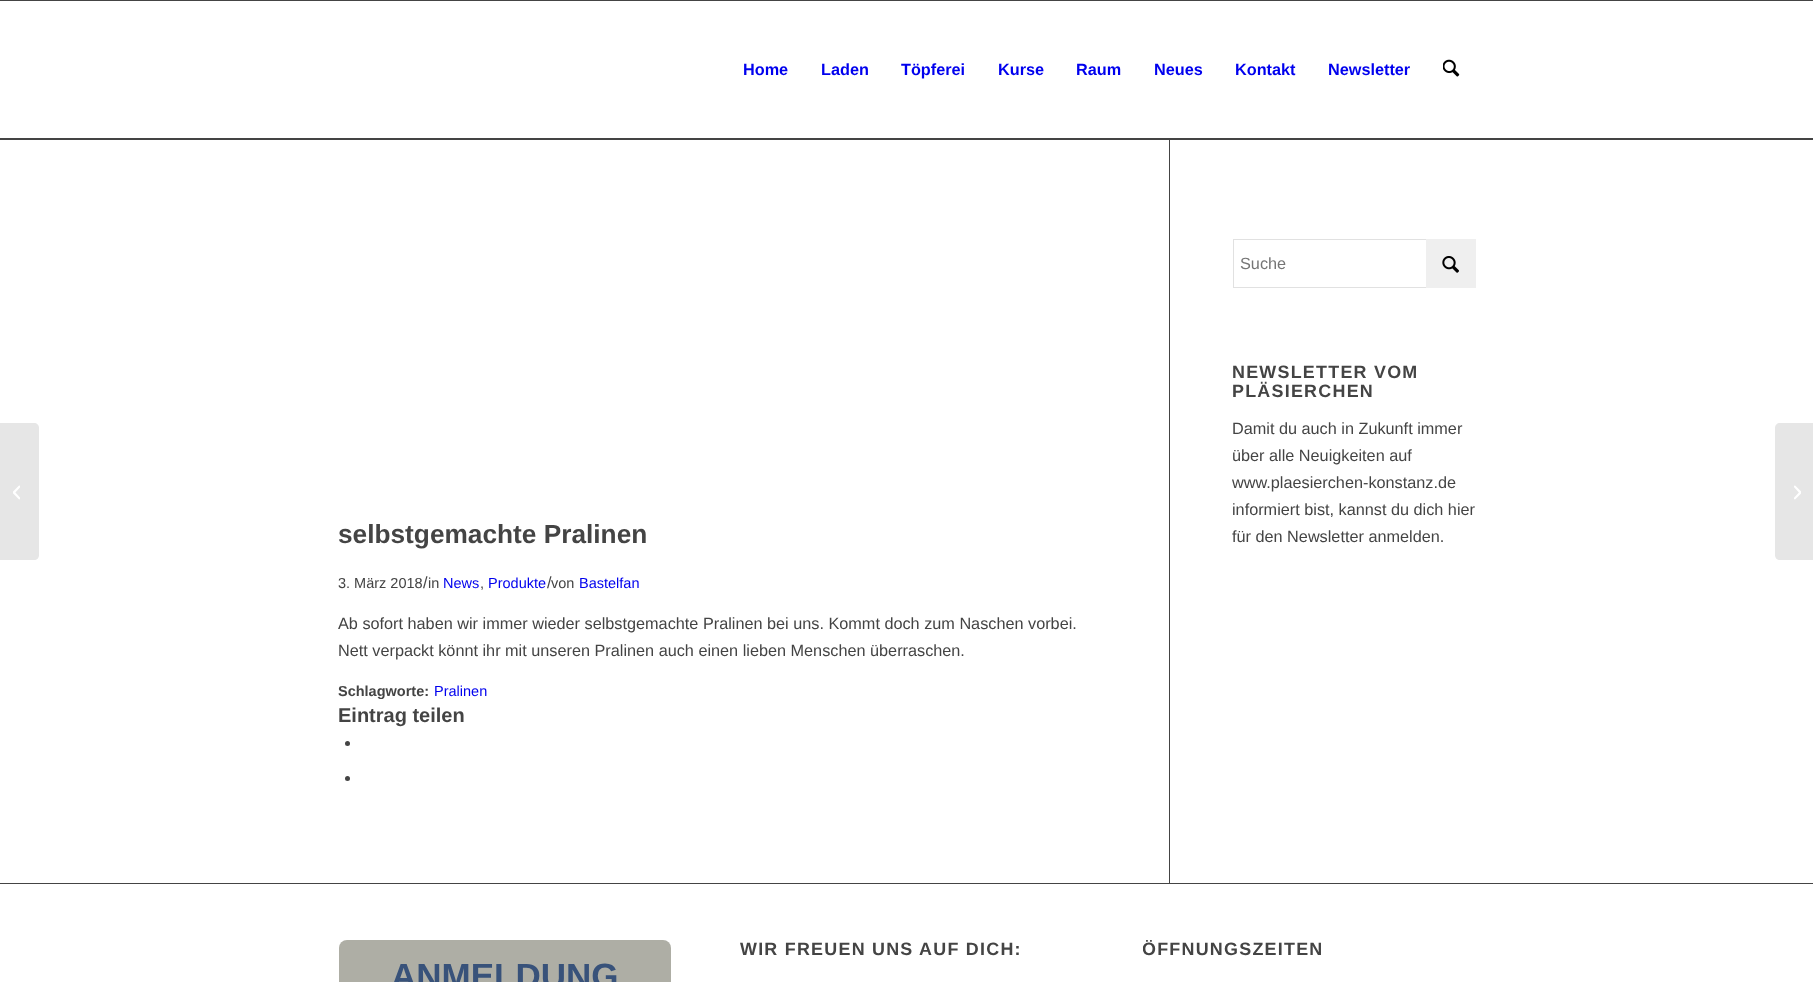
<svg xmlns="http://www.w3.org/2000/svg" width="1813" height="982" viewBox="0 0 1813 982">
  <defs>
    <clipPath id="clip1"><rect x="1143" y="940" width="332" height="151"/></clipPath>
  </defs>
  <rect width="100%" height="100%" fill="#ffffff"/>
  <rect x="0" y="0" width="1813" height="1" fill="#444444"/>
  <rect x="1169" y="139" width="1" height="744" fill="#444444"/>
  <rect x="0" y="139" width="1813" height="1" fill="#444444"/>
  <text x="743" y="75" font-family="Liberation Sans" font-size="16.25" font-weight="bold" fill="#0000ee">Home</text>
  <text x="821" y="75" font-family="Liberation Sans" font-size="16.25" font-weight="bold" fill="#0000ee">Laden</text>
  <text x="901" y="75" font-family="Liberation Sans" font-size="16.25" font-weight="bold" fill="#0000ee">Töpferei</text>
  <text x="998" y="75" font-family="Liberation Sans" font-size="16.25" font-weight="bold" fill="#0000ee">Kurse</text>
  <text x="1076" y="75" font-family="Liberation Sans" font-size="16.25" font-weight="bold" fill="#0000ee">Raum</text>
  <text x="1154" y="75" font-family="Liberation Sans" font-size="16.25" font-weight="bold" fill="#0000ee">Neues</text>
  <text x="1235" y="75" font-family="Liberation Sans" font-size="16.25" font-weight="bold" fill="#0000ee">Kontakt</text>
  <text x="1328" y="75" font-family="Liberation Sans" font-size="16.25" font-weight="bold" fill="#0000ee">Newsletter</text>
  <image x="1443" y="59" width="17" height="18" href="img1.png"/>
  <path d="M0 423H34C37 423 39 425 39 428V555C39 558 37 560 34 560H0Z" fill="#e6e6e6"/>
  <image x="13" y="485" width="7" height="15" href="img2.png"/>
  <rect x="0" y="138" width="1813" height="1" fill="#444444"/>
  <rect x="1233.5" y="239.5" width="242" height="48" fill="none" stroke="#e1e1e1"/>
  <rect x="1426" y="239" width="50" height="49" fill="#efefef"/>
  <text x="1240" y="269" font-family="Liberation Sans" font-size="16.25" fill="#757575">Suche</text>
  <image x="1442" y="256" width="17" height="17" href="img3.png"/>
  <text x="1232" y="378" font-family="Liberation Sans" font-size="17.9" font-weight="bold" letter-spacing="1.25" fill="#444444">NEWSLETTER VOM</text>
  <text x="1232" y="397" font-family="Liberation Sans" font-size="17.9" font-weight="bold" letter-spacing="1.25" fill="#444444">PLÄSIERCHEN</text>
  <text x="1232" y="434" font-family="Liberation Sans" font-size="16.25" fill="#444444">Damit du auch in Zukunft immer</text>
  <text x="1232" y="461" font-family="Liberation Sans" font-size="16.25" fill="#444444">über alle Neuigkeiten auf</text>
  <text x="1232" y="488" font-family="Liberation Sans" font-size="16.25" fill="#444444">www.plaesierchen-konstanz.de</text>
  <text x="1232" y="515" font-family="Liberation Sans" font-size="16.25" fill="#444444">informiert bist, kannst du dich hier</text>
  <text x="1232" y="542" font-family="Liberation Sans" font-size="16.25" fill="#444444">für den Newsletter anmelden.</text>
  <text x="338" y="543" font-family="Liberation Sans" font-size="26.25" font-weight="bold" fill="#444444">selbstgemachte Pralinen</text>
  <text x="338" y="588" font-family="Liberation Sans" font-size="14.5" fill="#444444">3. März 2018</text>
  <text x="423" y="588" font-family="Liberation Sans" font-size="16.25" fill="#444444">/</text>
  <text x="428" y="588" font-family="Liberation Sans" font-size="14.5" fill="#444444">in</text>
  <text x="443" y="588" font-family="Liberation Sans" font-size="14.5" fill="#0000ee">News</text>
  <text x="480" y="588" font-family="Liberation Sans" font-size="14.5" fill="#444444">,</text>
  <text x="488" y="588" font-family="Liberation Sans" font-size="14.5" fill="#0000ee">Produkte</text>
  <text x="547" y="588" font-family="Liberation Sans" font-size="16.25" fill="#444444">/</text>
  <text x="551" y="588" font-family="Liberation Sans" font-size="14.5" fill="#444444">von</text>
  <text x="579" y="588" font-family="Liberation Sans" font-size="14.5" fill="#0000ee">Bastelfan</text>
  <text x="338" y="629" font-family="Liberation Sans" font-size="16.25" fill="#444444">Ab sofort haben wir immer wieder selbstgemachte Pralinen bei uns. Kommt doch zum Naschen vorbei.</text>
  <text x="338" y="656" font-family="Liberation Sans" font-size="16.25" fill="#444444">Nett verpackt könnt ihr mit unseren Pralinen auch einen lieben Menschen überraschen.</text>
  <text x="338" y="696" font-family="Liberation Sans" font-size="14.5" font-weight="bold" fill="#444444">Schlagworte:</text>
  <text x="434" y="696" font-family="Liberation Sans" font-size="14.5" fill="#0000ee">Pralinen</text>
  <text x="338" y="722" font-family="Liberation Sans" font-size="20" font-weight="bold" fill="#444444">Eintrag teilen</text>
  <circle cx="347.5" cy="743.5" r="2.5" fill="#444444"/>
  <circle cx="347.5" cy="778.5" r="2.5" fill="#444444"/>
  <rect x="0" y="883" width="1813" height="1" fill="#444444"/>
  <text x="740" y="955" font-family="Liberation Sans" font-size="17.9" font-weight="bold" letter-spacing="1.25" fill="#444444">WIR FREUEN UNS AUF DICH:</text>
  <g clip-path="url(#clip1)">
    <text x="1142" y="955" font-family="Liberation Sans" font-size="17.9" font-weight="bold" letter-spacing="1.25" fill="#444444">ÖFFNUNGSZEITEN</text>
  </g>
  <rect x="339" y="940" width="332" height="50" rx="8" fill="#aeaea5"/>
  <text x="391" y="988" font-family="Liberation Sans" font-size="35" font-weight="bold" fill="#38527a">ANMELDUNG</text>
  <path d="M1780 423H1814V560H1780C1777 560 1775 558 1775 555V428C1775 425 1777 423 1780 423Z" fill="#e6e6e6"/>
  <image x="1794" y="485" width="7" height="15" href="img4.png"/>
</svg>
